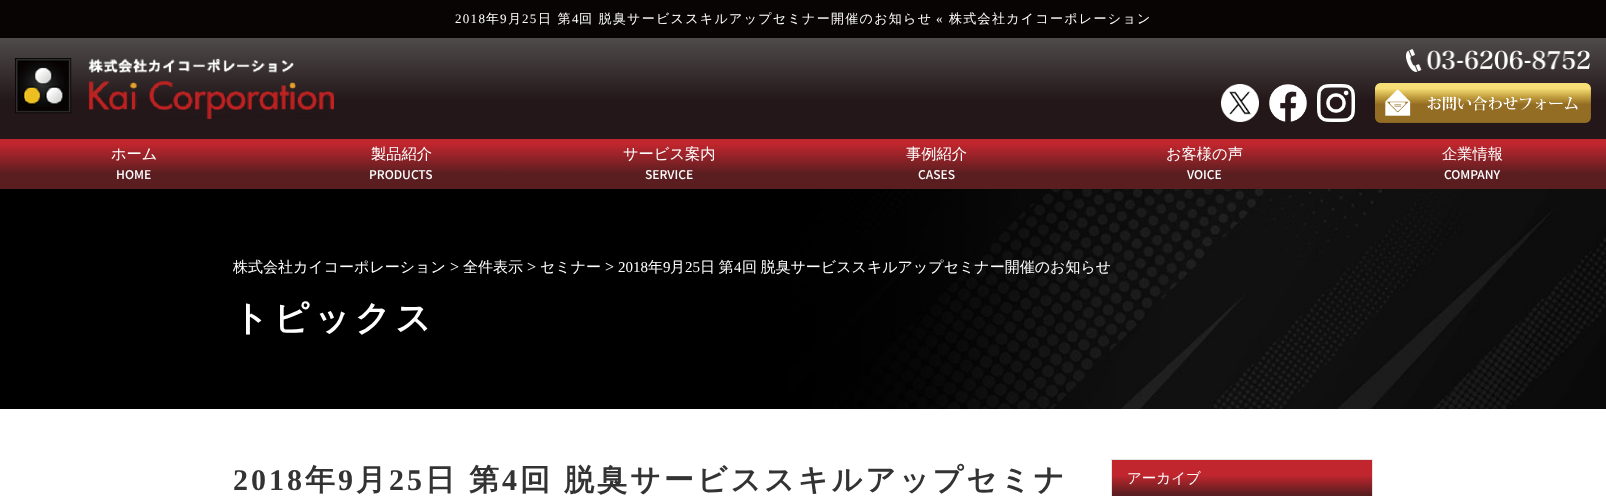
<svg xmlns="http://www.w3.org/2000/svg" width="1606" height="496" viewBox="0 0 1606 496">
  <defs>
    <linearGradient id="g1" gradientUnits="userSpaceOnUse" x1="803" y1="38" x2="803" y2="139"><stop offset="0" stop-color="#4f4b4a"/><stop offset="0.62" stop-color="#231719"/></linearGradient>
    <linearGradient id="g2" gradientUnits="userSpaceOnUse" x1="803" y1="38" x2="803" y2="189"><stop offset="0.7" stop-color="#c1262e"/><stop offset="0.9" stop-color="#5a1e20"/></linearGradient>
    <linearGradient id="g3" gradientUnits="userSpaceOnUse" x1="1242" y1="460" x2="1242" y2="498"><stop offset="0.4" stop-color="#c1262e"/><stop offset="0.9" stop-color="#5a1e20"/></linearGradient>
  </defs>
  <rect width="100%" height="100%" fill="#ffffff"/>
  <rect x="0" y="0" width="1606" height="38" fill="#080404"/>
  <text x="455" y="23" font-family="Liberation Serif" font-size="13" letter-spacing="1.3" fill="#ffffff">2018</text>
  <text x="486" y="23" font-family="WenQuanYi Zen Hei" font-size="13" font-weight="500" letter-spacing="1.3" fill="#ffffff">年</text>
  <text x="500" y="23" font-family="Liberation Serif" font-size="13" letter-spacing="1.3" fill="#ffffff">9</text>
  <text x="508" y="23" font-family="WenQuanYi Zen Hei" font-size="13" font-weight="500" letter-spacing="1.3" fill="#ffffff">月</text>
  <text x="522" y="23" font-family="Liberation Serif" font-size="13" letter-spacing="1.3" fill="#ffffff">25</text>
  <text x="538" y="23" font-family="WenQuanYi Zen Hei" font-size="13" font-weight="500" letter-spacing="1.3" fill="#ffffff">日 第</text>
  <text x="572" y="23" font-family="Liberation Serif" font-size="13" letter-spacing="1.3" fill="#ffffff">4</text>
  <text x="579" y="23" font-family="WenQuanYi Zen Hei" font-size="13" font-weight="500" letter-spacing="1.3" fill="#ffffff">回 脱臭サービススキルアップセミナー開催のお知らせ</text>
  <text x="936" y="23" font-family="Liberation Serif" font-size="13" letter-spacing="1.3" fill="#ffffff">«</text>
  <text x="949" y="23" font-family="WenQuanYi Zen Hei" font-size="13" font-weight="500" letter-spacing="1.3" fill="#ffffff">株式会社カイコーポレーション</text>
  <rect x="0" y="38" width="1606" height="101" fill="url(#g1)"/>
  <image x="15" y="58" width="319" height="61" href="img1.png"/>
  <image x="1221" y="84" width="38" height="38" href="img2.png"/>
  <image x="1269" y="84" width="38" height="38" href="img3.png"/>
  <image x="1317" y="84" width="38" height="38" href="img4.png"/>
  <image x="1406" y="49" width="184" height="23" href="img5.png"/>
  <image x="1375" y="83" width="216" height="40" href="img6.png"/>
  <rect x="0" y="139" width="1606" height="50" fill="url(#g2)"/>
  <text x="111" y="159" font-family="WenQuanYi Zen Hei" font-size="15.25" font-weight="500" fill="#ffffff">ホーム</text>
  <text x="116" y="179" font-family="Noto Sans JP" font-size="12" font-weight="100" fill="#ffffff">HOME</text>
  <text x="371" y="159" font-family="WenQuanYi Zen Hei" font-size="15.25" font-weight="500" fill="#ffffff">製品紹介</text>
  <text x="369" y="179" font-family="Noto Sans JP" font-size="12" font-weight="100" fill="#ffffff">PRODUCTS</text>
  <text x="623" y="159" font-family="WenQuanYi Zen Hei" font-size="15.25" font-weight="500" fill="#ffffff">サービス案内</text>
  <text x="645" y="179" font-family="Noto Sans JP" font-size="12" font-weight="100" fill="#ffffff">SERVICE</text>
  <text x="906" y="159" font-family="WenQuanYi Zen Hei" font-size="15.25" font-weight="500" fill="#ffffff">事例紹介</text>
  <text x="918" y="179" font-family="Noto Sans JP" font-size="12" font-weight="100" fill="#ffffff">CASES</text>
  <text x="1166" y="159" font-family="WenQuanYi Zen Hei" font-size="15.25" font-weight="500" fill="#ffffff">お客様の声</text>
  <text x="1187" y="179" font-family="Noto Sans JP" font-size="12" font-weight="100" fill="#ffffff">VOICE</text>
  <text x="1442" y="159" font-family="WenQuanYi Zen Hei" font-size="15.25" font-weight="500" fill="#ffffff">企業情報</text>
  <text x="1444" y="179" font-family="Noto Sans JP" font-size="12" font-weight="100" fill="#ffffff">COMPANY</text>
  <image x="0" y="189" width="1606" height="220" href="img7.png"/>
  <text x="233" y="272" font-family="WenQuanYi Zen Hei" font-size="15" font-weight="500" fill="#ffffff">株式会社カイコーポレーション</text>
  <text x="450" y="272" font-family="Liberation Serif" font-size="16" fill="#ffffff">&gt;</text>
  <text x="463" y="272" font-family="WenQuanYi Zen Hei" font-size="15" font-weight="500" fill="#ffffff">全件表示</text>
  <text x="527" y="272" font-family="Liberation Serif" font-size="16" fill="#ffffff">&gt;</text>
  <text x="540" y="272" font-family="WenQuanYi Zen Hei" font-size="15" font-weight="500" fill="#ffffff">セミナー</text>
  <text x="605" y="272" font-family="Liberation Serif" font-size="16" fill="#ffffff">&gt;</text>
  <text x="618" y="272" font-family="Liberation Serif" font-size="15" fill="#ffffff">2018</text>
  <text x="648" y="272" font-family="WenQuanYi Zen Hei" font-size="15" font-weight="500" fill="#ffffff">年</text>
  <text x="663" y="272" font-family="Liberation Serif" font-size="15" fill="#ffffff">9</text>
  <text x="670" y="272" font-family="WenQuanYi Zen Hei" font-size="15" font-weight="500" fill="#ffffff">月</text>
  <text x="685" y="272" font-family="Liberation Serif" font-size="15" fill="#ffffff">25</text>
  <text x="700" y="272" word-spacing="-1" font-family="WenQuanYi Zen Hei" font-size="15" font-weight="500" fill="#ffffff">日 第</text>
  <text x="734" y="272" font-family="Liberation Serif" font-size="15" fill="#ffffff">4</text>
  <text x="742" y="272" word-spacing="-1" font-family="WenQuanYi Zen Hei" font-size="15" font-weight="500" fill="#ffffff">回 脱臭サービススキルアップセミナー開催のお知らせ</text>
  <text x="233" y="330" font-family="WenQuanYi Zen Hei" font-size="35.25" font-weight="bold" letter-spacing="4.5" fill="#ffffff">トピックス</text>
  <text x="233" y="490" font-family="Liberation Serif" font-size="30" font-weight="bold" letter-spacing="3" fill="#333333">2018</text>
  <text x="305" y="490" font-family="WenQuanYi Zen Hei" font-size="30" font-weight="bold" letter-spacing="3" fill="#333333">年</text>
  <text x="338" y="490" font-family="Liberation Serif" font-size="30" font-weight="bold" letter-spacing="3" fill="#333333">9</text>
  <text x="356" y="490" font-family="WenQuanYi Zen Hei" font-size="30" font-weight="bold" letter-spacing="3" fill="#333333">月</text>
  <text x="389" y="490" font-family="Liberation Serif" font-size="30" font-weight="bold" letter-spacing="3" fill="#333333">25</text>
  <text x="425" y="490" word-spacing="-1" font-family="WenQuanYi Zen Hei" font-size="30" font-weight="bold" letter-spacing="3" fill="#333333">日 第</text>
  <text x="502" y="490" font-family="Liberation Serif" font-size="30" font-weight="bold" letter-spacing="3" fill="#333333">4</text>
  <text x="520" y="490" word-spacing="-1" font-family="WenQuanYi Zen Hei" font-size="30" font-weight="bold" letter-spacing="3" fill="#333333">回 脱臭サービススキルアップセミナ</text>
  <rect x="1112" y="460" width="260" height="36" fill="url(#g3)"/>
  <rect x="1111.5" y="459.5" width="261" height="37" fill="none" stroke="#e5e5e5"/>
  <text x="1127" y="483" font-family="WenQuanYi Zen Hei" font-size="14.5" font-weight="500" fill="#ffffff">アーカイブ</text>
</svg>
